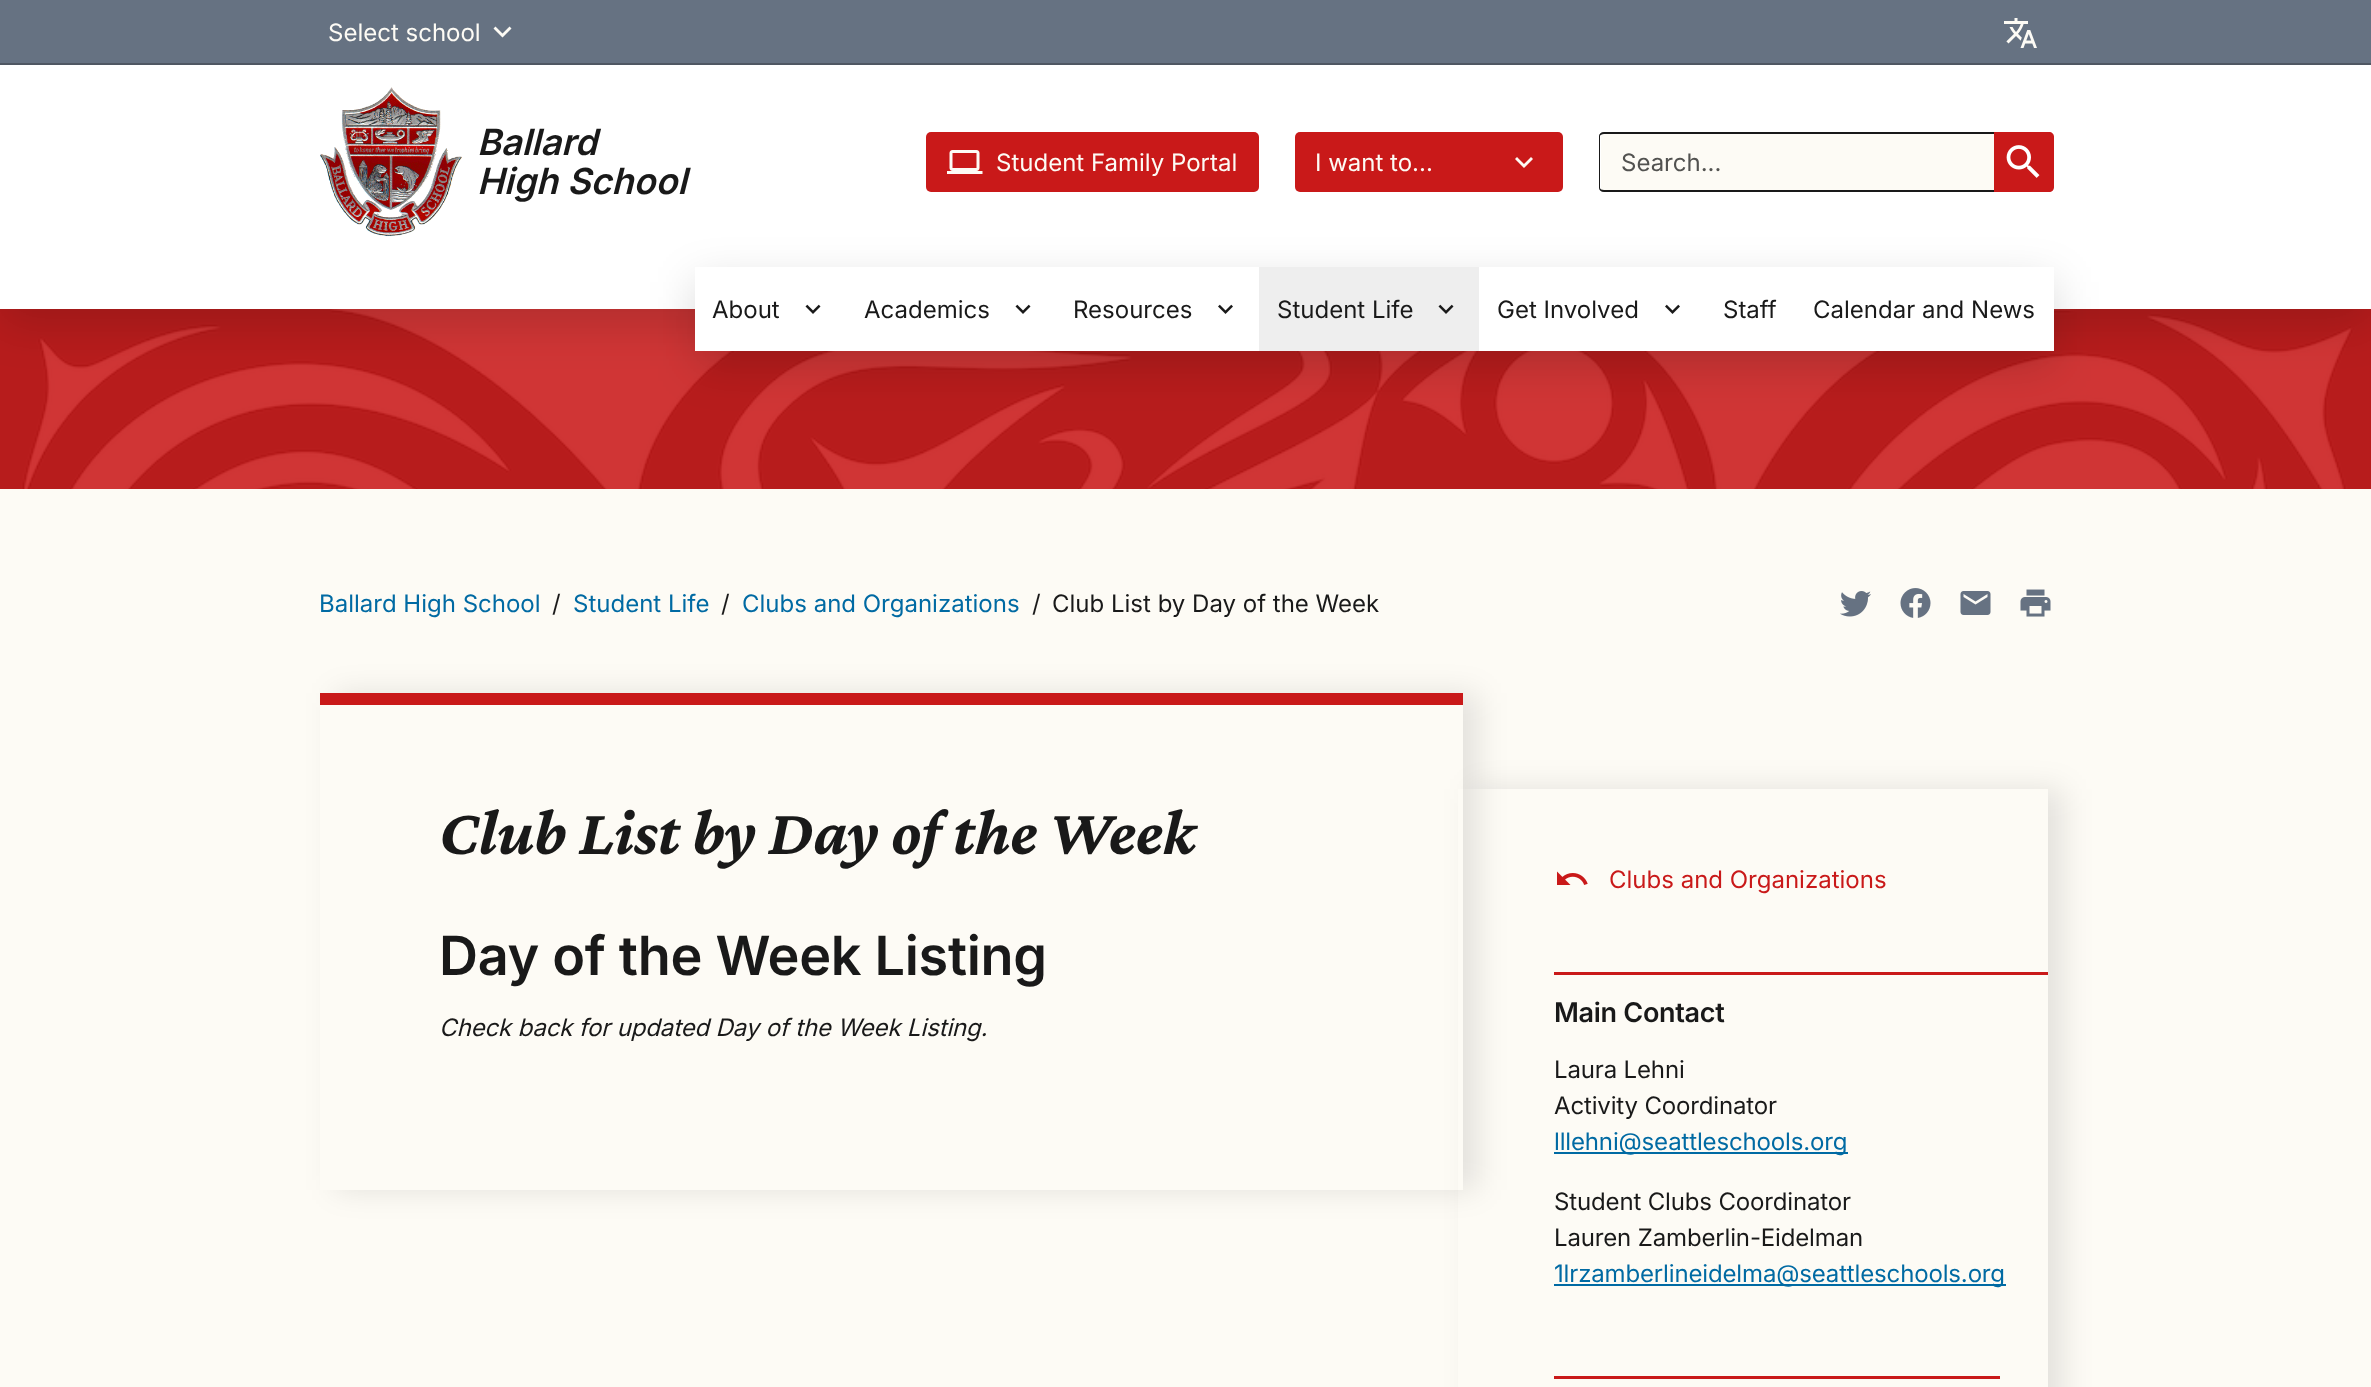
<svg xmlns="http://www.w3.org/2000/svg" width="2371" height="1387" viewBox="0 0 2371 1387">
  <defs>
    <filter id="blur1" x="-50%" y="-200%" width="200%" height="500%"><feGaussianBlur stdDeviation="22.5"/></filter>
    <clipPath id="clip1"><path d="M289 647H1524V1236H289ZM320 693H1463V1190H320Z" clip-rule="evenodd"/></clipPath>
    <filter id="blur2" x="-50%" y="-200%" width="200%" height="500%"><feGaussianBlur stdDeviation="15"/></filter>
    <clipPath id="clip2"><path d="M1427 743H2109V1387H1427ZM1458 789H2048V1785H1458Z" clip-rule="evenodd"/></clipPath>
  </defs>
  <rect width="100%" height="100%" fill="#fdfbf5"/>
  <image x="0" y="309" width="2371" height="180" href="img8.png"/>
  <rect x="0" y="15" width="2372" height="309" fill="#000000" fill-opacity="0.15" filter="url(#blur1)"/>
  <rect x="0" y="65" width="2371" height="244" fill="#ffffff"/>
  <rect x="0" y="0" width="2371" height="63" fill="#667282"/>
  <text x="328" y="41" font-family="Inter" font-size="24" fill="#fdfbf5">Select school</text>
  <path d="M495.5 26.5L502.5 33.5L509.5 26.5L511.5 28.5L502.5 37.5L493.5 28.5Z" fill="#fdfbf5"/>
  <image x="2004" y="18" width="33" height="30" href="img1.png"/>
  <rect x="0" y="63" width="2371" height="2" fill="#4f5762"/>
  <image x="320" y="87" width="142" height="150" href="img2.png"/>
  <text x="477" y="155" font-family="Inter" font-size="36" font-weight="600" font-style="italic" fill="#191919">Ballard</text>
  <text x="477" y="194" font-family="Inter" font-size="36" font-weight="600" font-style="italic" fill="#191919">High School</text>
  <rect x="926" y="132" width="333" height="60" rx="5" fill="#c91919"/>
  <image x="947" y="150" width="36" height="24" href="img3.png"/>
  <text x="996" y="171" font-family="Inter" font-size="24" fill="#fdfbf5">Student Family Portal</text>
  <rect x="1295" y="132" width="268" height="60" rx="5" fill="#c91919"/>
  <text x="1315" y="171" font-family="Inter" font-size="24" fill="#fdfbf5">I want to...</text>
  <path d="M1517 157L1524 164L1531 157L1533 159L1524 168L1515 159Z" fill="#fdfbf5"/>
  <path d="M1604 134H1994V191H1604C1602.5 191 1601 189.5 1601 188V137C1601 135.5 1602.5 134 1604 134Z" fill="#fdfbf5"/>
  <path d="M1604 132H1994V192H1604C1601 192 1599 190 1599 188V136C1599 134 1601 132 1604 132ZM1604 134H1994V190H1604C1602 190 1600 189 1600 188V136C1600 135 1602 134 1604 134Z" fill="#191919" fill-rule="evenodd"/>
  <text x="1621" y="171" font-family="Inter" font-size="24" fill="#525250">Search...</text>
  <path d="M1994 132H2049C2052 132 2054 134 2054 137V187C2054 190 2052 192 2049 192H1994Z" fill="#c91919"/>
  <image x="2006" y="145" width="34" height="33" href="img4.png"/>
  <rect x="695" y="282" width="1359" height="84" fill="#000000" fill-opacity="0.15" filter="url(#blur1)"/>
  <rect x="695" y="267" width="1359" height="84" fill="#ffffff"/>
  <text x="712" y="318" font-family="Inter" font-size="24" fill="#191919">About</text>
  <image x="805" y="304" width="16" height="10" href="img5.png"/>
  <text x="864" y="318" font-family="Inter" font-size="24" fill="#191919">Academics</text>
  <image x="1015" y="304" width="16" height="10" href="img5.png"/>
  <text x="1073" y="318" font-family="Inter" font-size="24" fill="#191919">Resources</text>
  <image x="1218" y="304" width="15" height="10" href="img6.png"/>
  <rect x="1259" y="267" width="220" height="84" fill="#eeeeee"/>
  <text x="1277" y="318" font-family="Inter" font-size="24" fill="#191919">Student Life</text>
  <image x="1438" y="304" width="16" height="10" href="img7.png"/>
  <text x="1497" y="318" font-family="Inter" font-size="24" fill="#191919">Get Involved</text>
  <image x="1665" y="304" width="15" height="10" href="img6.png"/>
  <text x="1723" y="318" font-family="Inter" font-size="24" fill="#191919">Staff</text>
  <text x="1813" y="318" font-family="Inter" font-size="24" fill="#191919">Calendar and News</text>
  <text x="319" y="612" font-family="Inter" font-size="24" fill="#006aa3">Ballard High School</text>
  <text x="552" y="612" font-family="Inter" font-size="24" fill="#191919">/</text>
  <text x="573" y="612" font-family="Inter" font-size="24" fill="#006aa3">Student Life</text>
  <text x="721" y="612" font-family="Inter" font-size="24" fill="#191919">/</text>
  <text x="742" y="612" font-family="Inter" font-size="24" fill="#006aa3">Clubs and Organizations</text>
  <text x="1032" y="612" font-family="Inter" font-size="24" fill="#191919">/</text>
  <text x="1052" y="612" font-family="Inter" font-size="24" fill="#191919">Club List by Day of the Week</text>
  <image x="1840" y="591" width="31" height="26" href="img9.png"/>
  <image x="1900" y="588" width="31" height="30" href="img10.png"/>
  <image x="1960" y="591" width="31" height="24" href="img11.png"/>
  <image x="2020" y="589" width="31" height="28" href="img12.png"/>
  <g clip-path="url(#clip1)">
    <rect x="335" y="693" width="1143" height="497" fill="#000000" fill-opacity="0.1" filter="url(#blur2)"/>
  </g>
  <rect x="320" y="693" width="1143" height="12" fill="#c91919"/>
  <text x="439" y="854" font-family="Crimson Pro" font-size="66" font-weight="bold" font-style="italic" letter-spacing="-0.3" fill="#191919">Club List by Day of the Week</text>
  <text x="439" y="975" font-family="Inter" font-size="54" font-weight="600" letter-spacing="-0.3" fill="#191919">Day of the Week Listing</text>
  <text x="439" y="1036" font-family="Inter" font-size="24" font-style="italic" letter-spacing="-0.15" fill="#191919">Check back for updated Day of the Week Listing.</text>
  <g clip-path="url(#clip2)">
    <rect x="1473" y="789" width="590" height="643" fill="#000000" fill-opacity="0.1" filter="url(#blur2)"/>
  </g>
  <image x="1557" y="871" width="31" height="14" href="img13.png"/>
  <text x="1609" y="888" font-family="Inter" font-size="24" fill="#c91919">Clubs and Organizations</text>
  <rect x="1554" y="972" width="494" height="3" fill="#c91919"/>
  <text x="1554" y="1022" font-family="Inter" font-size="27" font-weight="600" letter-spacing="-0.3" fill="#191919">Main Contact</text>
  <text x="1554" y="1078" font-family="Inter" font-size="24" letter-spacing="-0.15" fill="#191919">Laura Lehni</text>
  <text x="1554" y="1114" font-family="Inter" font-size="24" letter-spacing="-0.15" fill="#191919">Activity Coordinator</text>
  <rect x="1554" y="1152" width="294" height="2" fill="#006aa3"/>
  <text x="1554" y="1150" font-family="Inter" font-size="24" letter-spacing="-0.15" fill="#006aa3">lllehni@seattleschools.org</text>
  <text x="1554" y="1210" font-family="Inter" font-size="24" letter-spacing="-0.15" fill="#191919">Student Clubs Coordinator</text>
  <text x="1554" y="1246" font-family="Inter" font-size="24" letter-spacing="-0.15" fill="#191919">Lauren Zamberlin-Eidelman</text>
  <rect x="1554" y="1284" width="452" height="2" fill="#006aa3"/>
  <text x="1554" y="1282" font-family="Inter" font-size="24" letter-spacing="-0.15" fill="#006aa3">1lrzamberlineidelma@seattleschools.org</text>
  <rect x="1554" y="1376" width="446" height="3" fill="#c91919"/>
</svg>
